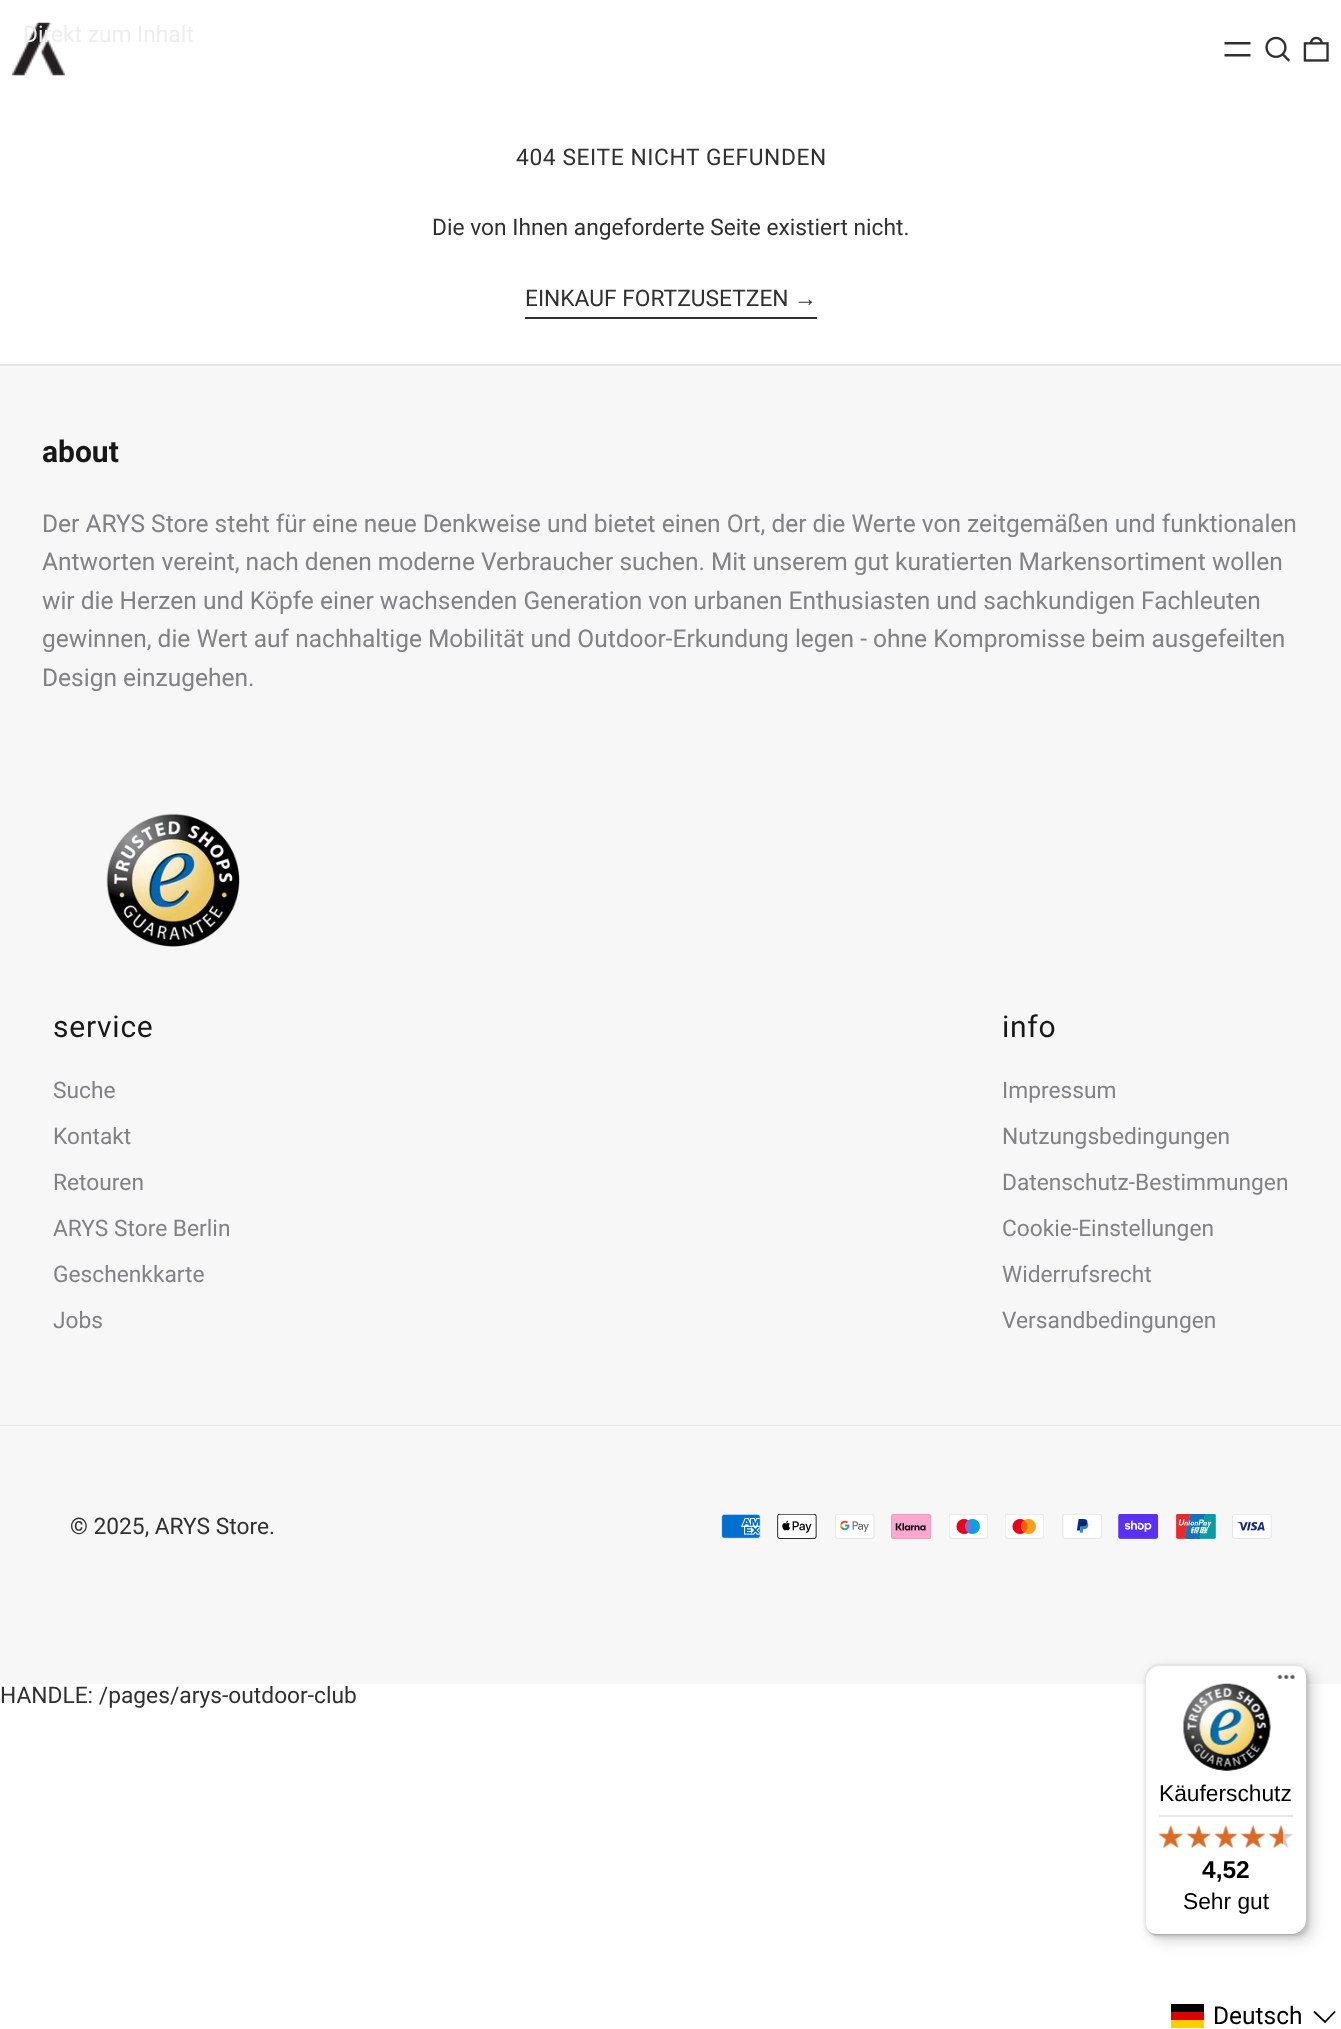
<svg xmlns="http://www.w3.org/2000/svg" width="1341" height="2029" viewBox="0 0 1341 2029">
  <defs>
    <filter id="blur1" x="-50%" y="-200%" width="200%" height="500%"><feGaussianBlur stdDeviation="7"/></filter>
    <filter id="blur2" x="-50%" y="-200%" width="200%" height="500%"><feGaussianBlur stdDeviation="2"/></filter>
  </defs>
  <rect width="100%" height="100%" fill="#ffffff"/>
  <image x="12" y="22" width="53" height="54" href="img1.png"/>
  <path d="M1250.5 54V56.5H1224.5V54ZM1250.5 42V44.5H1224.5V42Z" fill="#303030" fill-rule="evenodd"/>
  <image x="1265" y="36" width="25" height="26" href="img2.png"/>
  <image x="1303" y="36" width="26" height="26" href="img3.png"/>
  <text x="23" y="42" font-family="Roboto" font-size="22.75" fill="#eeeeee">Direkt zum Inhalt</text>
  <text x="516" y="165" font-family="Roboto" font-size="22.75" letter-spacing="0.6" fill="#303030">404 SEITE NICHT GEFUNDEN</text>
  <text x="432" y="235" font-family="Roboto" font-size="22.75" fill="#303030">Die von Ihnen angeforderte Seite existiert nicht.</text>
  <rect x="525" y="317" width="292" height="2" fill="#303030"/>
  <text x="525" y="306" font-family="Roboto" font-size="22.75" fill="#303030">EINKAUF FORTZUSETZEN</text>
  <text x="794" y="306" font-family="Liberation Sans" font-size="22.75" fill="#303030">→</text>
  <rect x="0" y="366" width="1341" height="1059" fill="#f7f7f8"/>
  <rect x="0" y="364" width="1341" height="2" fill="#e5e7eb"/>
  <text x="42" y="462" font-family="Roboto" font-size="30" font-weight="bold" fill="#171717">about</text>
  <text x="42" y="532" font-family="Roboto" font-size="24.5" fill="#808284">Der ARYS Store steht für eine neue Denkweise und bietet einen Ort, der die Werte von zeitgemäßen und funktionalen</text>
  <text x="42" y="570" font-family="Roboto" font-size="24.5" fill="#808284">Antworten vereint, nach denen moderne Verbraucher suchen. Mit unserem gut kuratierten Markensortiment wollen</text>
  <text x="42" y="609" font-family="Roboto" font-size="24.5" fill="#808284">wir die Herzen und Köpfe einer wachsenden Generation von urbanen Enthusiasten und sachkundigen Fachleuten</text>
  <text x="42" y="647" font-family="Roboto" font-size="24.5" fill="#808284">gewinnen, die Wert auf nachhaltige Mobilität und Outdoor-Erkundung legen - ohne Kompromisse beim ausgefeilten</text>
  <text x="42" y="686" font-family="Roboto" font-size="24.5" fill="#808284">Design einzugehen.</text>
  <image x="106" y="813" width="134" height="134" href="img4.png"/>
  <text x="53" y="1037" font-family="Roboto" font-size="30" letter-spacing="0.75" fill="#171717">service</text>
  <text x="53" y="1098" font-family="Roboto" font-size="22.75" fill="#808284">Suche</text>
  <text x="53" y="1144" font-family="Roboto" font-size="22.75" fill="#808284">Kontakt</text>
  <text x="53" y="1190" font-family="Roboto" font-size="22.75" fill="#808284">Retouren</text>
  <text x="53" y="1236" font-family="Roboto" font-size="22.75" fill="#808284">ARYS Store Berlin</text>
  <text x="53" y="1282" font-family="Roboto" font-size="22.75" fill="#808284">Geschenkkarte</text>
  <text x="53" y="1328" font-family="Roboto" font-size="22.75" fill="#808284">Jobs</text>
  <text x="1002" y="1037" font-family="Roboto" font-size="30" letter-spacing="0.75" fill="#171717">info</text>
  <text x="1002" y="1098" font-family="Roboto" font-size="22.75" fill="#808284">Impressum</text>
  <text x="1002" y="1144" font-family="Roboto" font-size="22.75" fill="#808284">Nutzungsbedingungen</text>
  <text x="1002" y="1190" font-family="Roboto" font-size="22.75" fill="#808284">Datenschutz-Bestimmungen</text>
  <text x="1002" y="1236" font-family="Roboto" font-size="22.75" fill="#808284">Cookie-Einstellungen</text>
  <text x="1002" y="1282" font-family="Roboto" font-size="22.75" fill="#808284">Widerrufsrecht</text>
  <text x="1002" y="1328" font-family="Roboto" font-size="22.75" fill="#808284">Versandbedingungen</text>
  <rect x="0" y="1425" width="1341" height="1" fill="#e5e7eb"/>
  <rect x="0" y="1426" width="1341" height="258" fill="#f7f7f8"/>
  <text x="70" y="1534" font-family="Roboto" font-size="22.75" fill="#303030">© 2025, ARYS Store.</text>
  <image x="721" y="1514" width="40" height="25" href="img5.png"/>
  <image x="777" y="1514" width="40" height="25" href="img6.png"/>
  <image x="835" y="1514" width="40" height="25" href="img7.png"/>
  <image x="891" y="1514" width="40" height="25" href="img8.png"/>
  <image x="949" y="1514" width="39" height="25" href="img9.png"/>
  <image x="1005" y="1514" width="39" height="25" href="img10.png"/>
  <image x="1062" y="1514" width="40" height="25" href="img11.png"/>
  <image x="1118" y="1514" width="41" height="25" href="img12.png"/>
  <image x="1176" y="1514" width="40" height="25" href="img13.png"/>
  <image x="1232" y="1514" width="40" height="25" href="img14.png"/>
  <text x="0" y="1703" font-family="Roboto" font-size="22.75" fill="#303030">HANDLE: /pages/arys-outdoor-club</text>
  <rect x="1150" y="1670" width="163" height="271" rx="14" fill="#000000" fill-opacity="0.15" filter="url(#blur1)"/>
  <rect x="1146" y="1666" width="163" height="271" rx="14" fill="#000000" fill-opacity="0.15" filter="url(#blur2)"/>
  <rect x="1145" y="1664" width="162" height="272" rx="14" fill="#ffffff"/>
  <path d="M1160 1666H1295C1298 1666 1301 1667 1303 1669C1301 1666 1297 1664 1293 1664H1159C1151 1664 1145 1670 1145 1678V1922C1145 1927 1147 1931 1151 1933C1148 1931 1146 1927 1146 1923V1680C1146 1672 1153 1666 1160 1666Z" fill="#000000" fill-opacity="0.1"/>
  <path d="M1148 1930C1150 1934 1154 1936 1159 1936H1293C1301 1936 1307 1930 1307 1922V1678C1307 1675 1306 1672 1304 1669C1305 1671 1306 1674 1306 1676V1920C1306 1927 1299 1934 1292 1934H1157C1153 1934 1150 1933 1148 1930Z" fill="#000000" fill-opacity="0.2"/>
  <path d="M1148 1930C1150 1934 1154 1936 1159 1936H1293C1301 1936 1307 1930 1307 1922V1678C1307 1674 1306 1671 1303 1669C1305 1671 1306 1674 1306 1677V1920C1306 1928 1300 1934 1292 1934H1157C1154 1934 1150 1933 1148 1930Z" fill="#323232" fill-opacity="0.2"/>
  <path d="M1148 1930C1150 1934 1154 1936 1159 1936H1293C1301 1936 1307 1930 1307 1922V1678C1307 1673 1305 1669 1302 1667C1304 1670 1306 1673 1306 1677V1921C1306 1928 1300 1935 1292 1935H1158C1154 1935 1150 1933 1148 1930Z" fill="#ffffff" fill-opacity="0.3"/>
  <image x="1277" y="1674" width="18" height="5" href="img15.png"/>
  <image x="1183" y="1683" width="88" height="88" href="img16.png"/>
  <text x="1159" y="1801" font-family="Liberation Sans" font-size="22.75" fill="#000000">Käuferschutz</text>
  <rect x="1159" y="1815" width="134" height="2" fill="#e5e5e5"/>
  <image x="1158" y="1825" width="25" height="23" href="img17.png"/>
  <image x="1187" y="1825" width="24" height="23" href="img18.png"/>
  <image x="1214" y="1826" width="23" height="22" href="img19.png"/>
  <image x="1241" y="1825" width="24" height="23" href="img20.png"/>
  <image x="1269" y="1825" width="24" height="23" href="img21.png"/>
  <image x="1158" y="1825" width="25" height="23" href="img22.png"/>
  <image x="1186" y="1825" width="25" height="23" href="img23.png"/>
  <image x="1214" y="1825" width="24" height="23" href="img24.png"/>
  <image x="1240" y="1825" width="25" height="23" href="img25.png"/>
  <image x="1268" y="1825" width="15" height="23" href="img26.png"/>
  <text x="1202" y="1878" font-family="Liberation Sans" font-size="24.5" font-weight="bold" fill="#000000">4,52</text>
  <text x="1183" y="1909" font-family="Liberation Sans" font-size="22.75" fill="#000000">Sehr gut</text>
  <rect x="1171" y="2020" width="33" height="8" fill="#ffce00"/>
  <rect x="1171" y="2004" width="33" height="8" fill="#000000"/>
  <rect x="1171" y="2012" width="33" height="8" fill="#dd0000"/>
  <text x="1213" y="2024" font-family="Roboto" font-size="24.5" fill="#000000">Deutsch</text>
  <path d="M1314 2011.5L1325 2022L1335 2011.5" fill="none" stroke="#000000" stroke-width="1.8"/>
</svg>
